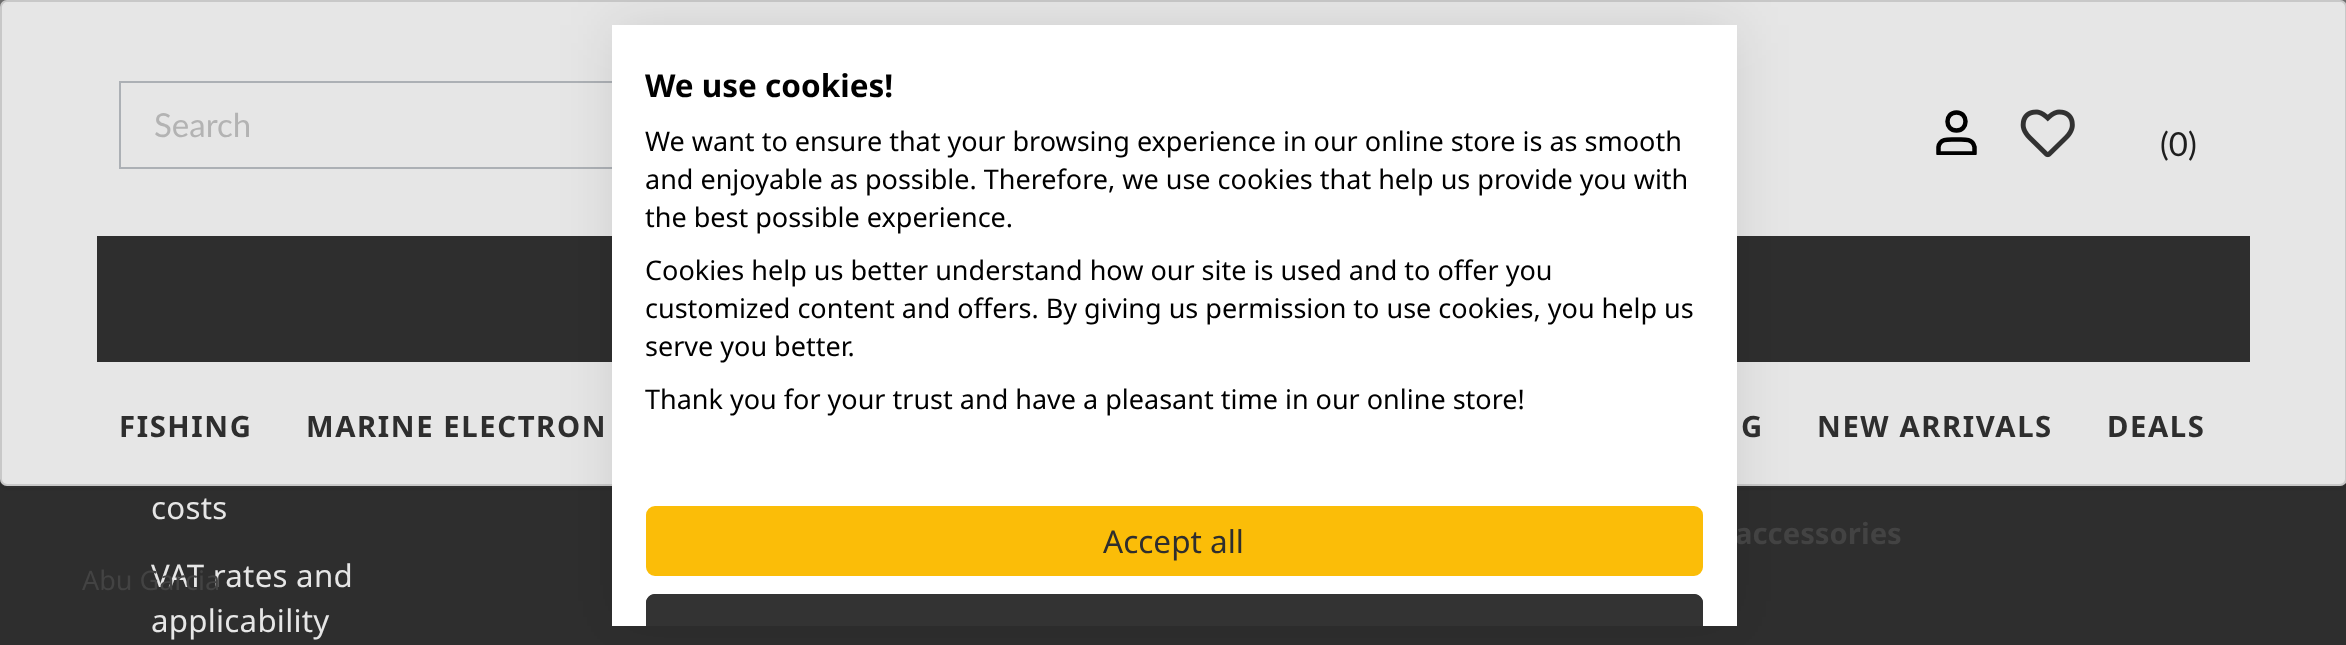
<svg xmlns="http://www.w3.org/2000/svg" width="2346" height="645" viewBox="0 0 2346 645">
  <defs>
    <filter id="blur1" x="-50%" y="-200%" width="200%" height="500%"><feGaussianBlur stdDeviation="2"/></filter>
    <filter id="blur2" x="-50%" y="-200%" width="200%" height="500%"><feGaussianBlur stdDeviation="27"/></filter>
    <clipPath id="clip1"><rect x="612" y="25" width="1125" height="601"/></clipPath>
    <clipPath id="clip2"><rect x="1935" y="110" width="45" height="45"/></clipPath>
  </defs>
  <rect width="100%" height="100%" fill="#2e2e2e"/>
  <rect x="0" y="0" width="2346" height="7" fill="#6d6d6d"/>
  <rect x="0" y="2" width="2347" height="486" rx="7" fill="#1f2022" fill-opacity="0.15" filter="url(#blur1)"/>
  <rect x="0" y="0" width="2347" height="486" rx="7" fill="#e6e6e6"/>
  <rect x="1" y="1" width="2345" height="484" rx="6" fill="none" stroke="#1f2022" stroke-opacity="0.15" stroke-width="2"/>
  <rect x="119" y="81" width="493" height="2" fill="#acb0b5"/>
  <rect x="119" y="167" width="493" height="2" fill="#acb0b5"/>
  <rect x="97" y="236" width="2153" height="126" fill="#2e2e2e"/>
  <rect x="612" y="25" width="1125" height="601" fill="#000000" fill-opacity="0.1" filter="url(#blur2)"/>
  <text x="1735" y="544" font-family="Noto Sans" font-size="29.25" font-weight="bold" fill="#434343">accessories</text>
  <rect x="612" y="25" width="1125" height="601" fill="#ffffff"/>
  <text x="645" y="97" font-family="Noto Sans" font-size="31.5" font-weight="bold" fill="#000000">We use cookies!</text>
  <text x="645" y="151" font-family="Noto Sans" font-size="27" fill="#000000">We want to ensure that your browsing experience in our online store is as smooth</text>
  <text x="645" y="189" font-family="Noto Sans" font-size="27" fill="#000000">and enjoyable as possible. Therefore, we use cookies that help us provide you with</text>
  <text x="645" y="227" font-family="Noto Sans" font-size="27" fill="#000000">the best possible experience.</text>
  <text x="645" y="280" font-family="Noto Sans" font-size="27" fill="#000000">Cookies help us better understand how our site is used and to offer you</text>
  <text x="645" y="318" font-family="Noto Sans" font-size="27" fill="#000000">customized content and offers. By giving us permission to use cookies, you help us</text>
  <text x="645" y="356" font-family="Noto Sans" font-size="27" fill="#000000">serve you better.</text>
  <text x="645" y="409" font-family="Noto Sans" font-size="27" fill="#000000">Thank you for your trust and have a pleasant time in our online store!</text>
  <rect x="647" y="507" width="1055" height="68" rx="8" fill="#fbbd08" stroke="#fbbd08" stroke-width="2"/>
  <text x="1103" y="553" font-family="Noto Sans" font-size="31.5" fill="#2e2e2e">Accept all</text>
  <path d="M655 594H1694C1699 594 1703 598 1703 603V626H646V603C646 598 650 594 655 594Z" fill="#333333"/>
  <g clip-path="url(#clip1)">
    <rect x="647" y="595" width="1055" height="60" rx="8" fill="none" stroke="#333333" stroke-width="2"/>
  </g>
  <rect x="119" y="81" width="2" height="88" fill="#acb0b5"/>
  <text x="154" y="137" font-family="Lato" font-size="33" fill="#b3b3b3">Search</text>
  <g clip-path="url(#clip2)">
    <path d="M1938.5 153.5H1974.5M1974.5 153.5V147C1972.5 138 1963 139.5 1956.5 139.5C1949.5 139.5 1940 138 1938.5 147V153.5" fill="none" stroke="#000000" stroke-width="4.5" stroke-linecap="round" stroke-linejoin="round"/>
  </g>
  <path d="M1956.5 130.5C1968.5 130.5 1968.5 112.5 1956.5 112.5C1944.5 112.5 1944.5 130.5 1956.5 130.5Z" fill="none" stroke="#000000" stroke-width="4.5" stroke-linecap="round" stroke-linejoin="round"/>
  <image x="2020" y="109" width="55" height="49" href="img1.png"/>
  <text x="2160" y="156" font-family="Lato" font-size="33" fill="#1e1e1e">(0)</text>
  <text x="119" y="437" font-family="Noto Sans" font-size="29.25" font-weight="bold" letter-spacing="1.6" fill="#2e2e2e">FISHING</text>
  <text x="151" y="587" font-family="Noto Sans" font-size="31.25" letter-spacing="0.25" fill="#e6e6e6">VAT rates and</text>
  <text x="82" y="590" font-family="Noto Sans" font-size="27" fill="#434343">Abu Garcia</text>
  <text x="306" y="437" font-family="Noto Sans" font-size="29.25" font-weight="bold" letter-spacing="1.6" fill="#2e2e2e">MARINE ELECTRON</text>
  <text x="1741" y="437" font-family="Noto Sans" font-size="29.25" font-weight="bold" letter-spacing="1.6" fill="#2e2e2e">G</text>
  <text x="1817" y="437" font-family="Noto Sans" font-size="29.25" font-weight="bold" letter-spacing="1.6" fill="#2e2e2e">NEW ARRIVALS</text>
  <text x="2107" y="437" font-family="Noto Sans" font-size="29.25" font-weight="bold" letter-spacing="1.6" fill="#2e2e2e">DEALS</text>
  <text x="151" y="519" font-family="Noto Sans" font-size="31.25" letter-spacing="0.25" fill="#e6e6e6">costs</text>
  <text x="151" y="632" font-family="Noto Sans" font-size="31.25" letter-spacing="0.25" fill="#e6e6e6">applicability</text>
</svg>
